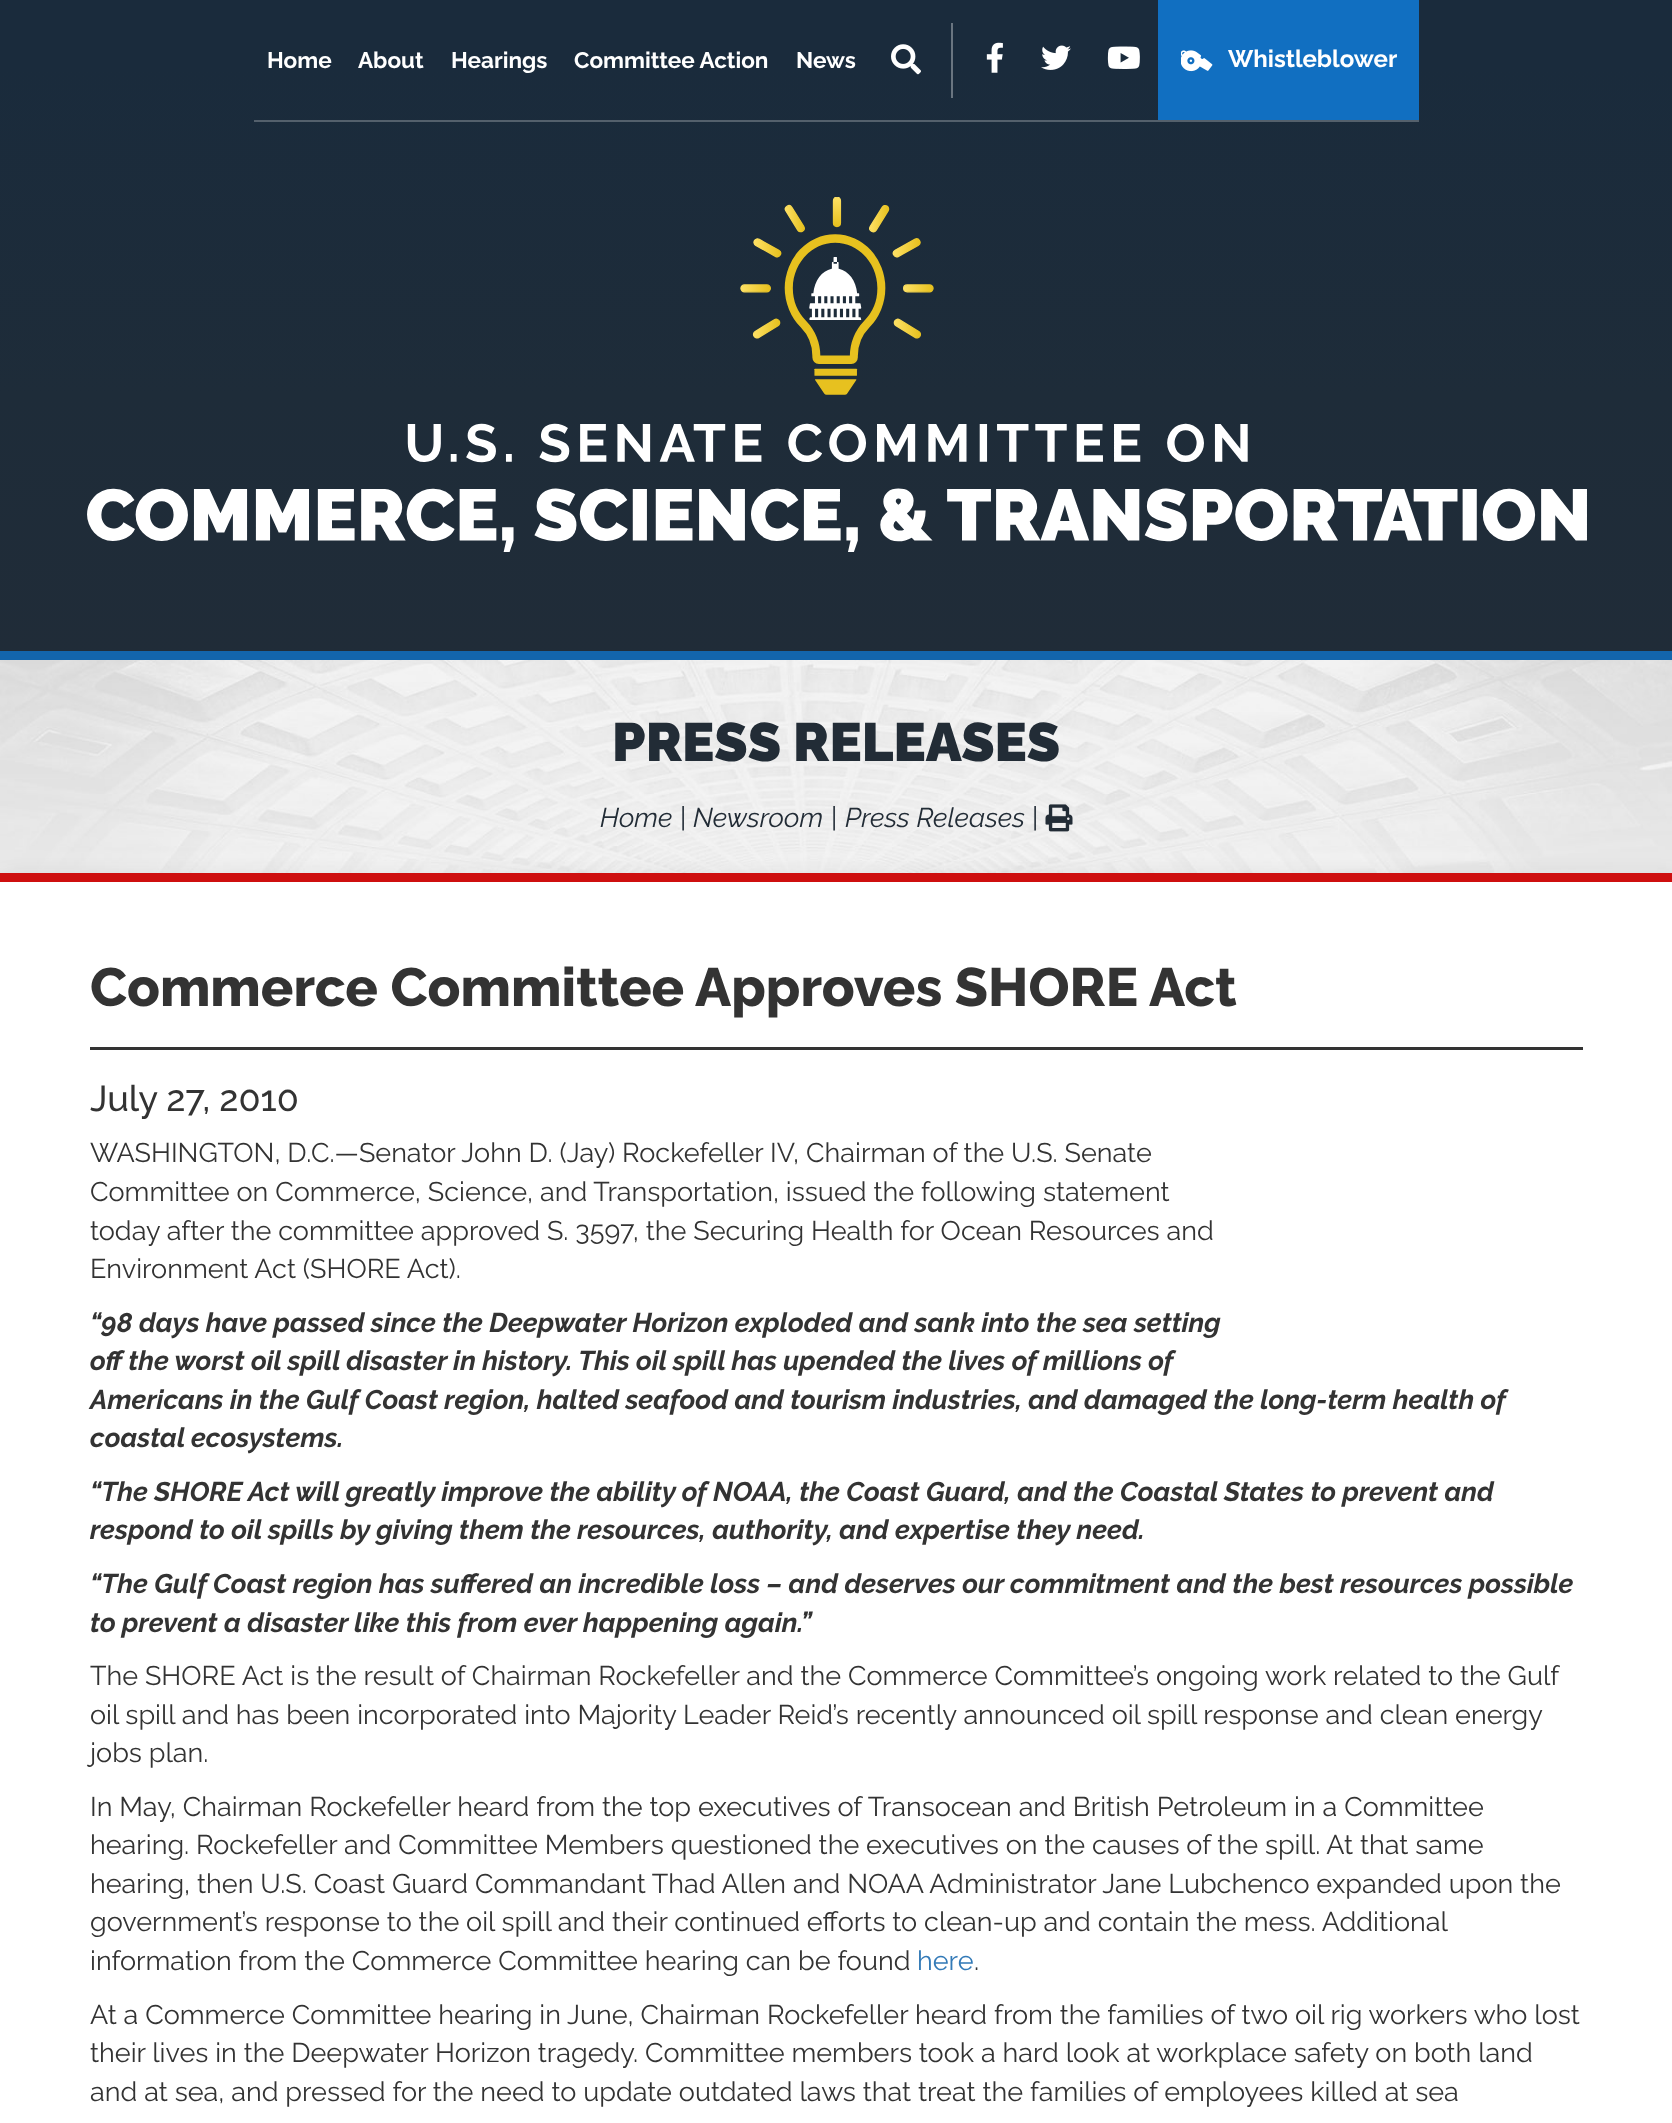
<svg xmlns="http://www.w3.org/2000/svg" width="1672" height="2123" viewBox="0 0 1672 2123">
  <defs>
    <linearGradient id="g1" gradientUnits="userSpaceOnUse" x1="836" y1="0" x2="836" y2="660"><stop offset="0.1" stop-color="#1a2b3c"/><stop offset="0.6" stop-color="#1e2c39"/><stop offset="1" stop-color="#202c38"/></linearGradient>
    <filter id="blur1" x="-50%" y="-200%" width="200%" height="500%"><feGaussianBlur stdDeviation="11"/></filter>
  </defs>
  <rect width="100%" height="100%" fill="#ffffff"/>
  <rect x="0" y="0" width="1672" height="651" fill="url(#g1)"/>
  <rect x="0" y="651" width="1672" height="9" fill="#1365ac"/>
  <rect x="254" y="120" width="1165" height="2" fill="#54606c"/>
  <text x="267" y="68" font-family="Raleway" font-size="22.5" font-weight="bold" fill="#ffffff">Home</text>
  <text x="358" y="68" font-family="Raleway" font-size="22.5" font-weight="bold" fill="#ffffff">About</text>
  <text x="451" y="68" font-family="Raleway" font-size="22.5" font-weight="bold" fill="#ffffff">Hearings</text>
  <text x="574" y="68" font-family="Raleway" font-size="22.5" font-weight="bold" fill="#ffffff">Committee Action</text>
  <text x="796" y="68" font-family="Raleway" font-size="22.5" font-weight="bold" fill="#ffffff">News</text>
  <rect x="951" y="23" width="2" height="75" fill="#6a7580"/>
  <image x="891" y="44" width="30" height="31" href="img1.png"/>
  <image x="986" y="42" width="17" height="31" href="img2.png"/>
  <image x="1041" y="45" width="30" height="25" href="img3.png"/>
  <image x="1107" y="46" width="33" height="23" href="img4.png"/>
  <rect x="1158" y="0" width="261" height="120" fill="#116fc1"/>
  <image x="1181" y="50" width="32" height="22" href="img5.png"/>
  <text x="1228" y="67" font-family="Raleway" font-size="24" font-weight="bold" fill="#ffffff">Whistleblower</text>
  <image x="87" y="197" width="1500" height="355" href="img6.png"/>
  <image x="0" y="660" width="1672" height="213" href="img7.png"/>
  <text x="612" y="761" font-family="Raleway" font-size="54" font-weight="900" fill="#222c36">PRESS RELEASES</text>
  <text x="600" y="827" font-family="Raleway" font-size="27" font-style="italic" fill="#222c36">Home</text>
  <text x="680" y="827" font-family="Raleway" font-size="27" fill="#222c36">|</text>
  <text x="693" y="827" font-family="Raleway" font-size="27" font-style="italic" fill="#222c36">Newsroom</text>
  <text x="831" y="827" font-family="Raleway" font-size="27" fill="#222c36">|</text>
  <text x="845" y="827" font-family="Raleway" font-size="27" font-style="italic" fill="#222c36">Press Releases</text>
  <text x="1032" y="827" font-family="Raleway" font-size="27" fill="#222c36">|</text>
  <image x="1045" y="804" width="28" height="28" href="img8.png"/>
  <rect x="5" y="881" width="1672" height="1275" fill="#000000" fill-opacity="0.16" filter="url(#blur1)"/>
  <rect x="0" y="882" width="1672" height="1241" fill="#ffffff"/>
  <rect x="0" y="873" width="1672" height="9" fill="#ce0f0f"/>
  <rect x="90" y="1047" width="1493" height="3" fill="#333333"/>
  <text x="90" y="1006" font-family="Raleway" font-size="54" font-weight="800" fill="#333333">Commerce Committee Approves SHORE Act</text>
  <text x="90" y="1111" font-family="Raleway" font-size="36" font-weight="500" fill="#333333">July 27, 2010</text>
  <text x="90" y="1162" font-family="Raleway" font-size="27" fill="#333333">WASHINGTON, D.C.—Senator John D. (Jay) Rockefeller IV, Chairman of the U.S. Senate</text>
  <text x="90" y="1201" font-family="Raleway" font-size="27" fill="#333333">Committee on Commerce, Science, and Transportation, issued the following statement</text>
  <text x="90" y="1240" font-family="Raleway" font-size="27" fill="#333333">today after the committee approved S. 3597, the Securing Health for Ocean Resources and</text>
  <text x="90" y="1278" font-family="Raleway" font-size="27" fill="#333333">Environment Act (SHORE Act).</text>
  <text x="90" y="1332" font-family="Raleway" font-size="27" font-weight="bold" font-style="italic" fill="#333333">“98 days have passed since the Deepwater Horizon exploded and sank into the sea setting</text>
  <text x="90" y="1370" font-family="Raleway" font-size="27" font-weight="bold" font-style="italic" fill="#333333">off the worst oil spill disaster in history. This oil spill has upended the lives of millions of</text>
  <text x="90" y="1409" font-family="Raleway" font-size="27" font-weight="bold" font-style="italic" fill="#333333">Americans in the Gulf Coast region, halted seafood and tourism industries, and damaged the long-term health of</text>
  <text x="90" y="1447" font-family="Raleway" font-size="27" font-weight="bold" font-style="italic" fill="#333333">coastal ecosystems.</text>
  <text x="90" y="1501" font-family="Raleway" font-size="27" font-weight="bold" font-style="italic" fill="#333333">“The SHORE Act will greatly improve the ability of NOAA, the Coast Guard, and the Coastal States to prevent and</text>
  <text x="90" y="1539" font-family="Raleway" font-size="27" font-weight="bold" font-style="italic" fill="#333333">respond to oil spills by giving them the resources, authority, and expertise they need.</text>
  <text x="90" y="1593" font-family="Raleway" font-size="27" font-weight="bold" font-style="italic" fill="#333333">“The Gulf Coast region has suffered an incredible loss – and deserves our commitment and the best resources possible</text>
  <text x="90" y="1632" font-family="Raleway" font-size="27" font-weight="bold" font-style="italic" fill="#333333">to prevent a disaster like this from ever happening again.”</text>
  <text x="90" y="1685" font-family="Raleway" font-size="27" fill="#333333">The SHORE Act is the result of Chairman Rockefeller and the Commerce Committee’s ongoing work related to the Gulf</text>
  <text x="90" y="1724" font-family="Raleway" font-size="27" fill="#333333">oil spill and has been incorporated into Majority Leader Reid’s recently announced oil spill response and clean energy</text>
  <text x="90" y="1762" font-family="Raleway" font-size="27" fill="#333333">jobs plan.</text>
  <text x="90" y="1816" font-family="Raleway" font-size="27" fill="#333333">In May, Chairman Rockefeller heard from the top executives of Transocean and British Petroleum in a Committee</text>
  <text x="90" y="1854" font-family="Raleway" font-size="27" fill="#333333">hearing. Rockefeller and Committee Members questioned the executives on the causes of the spill. At that same</text>
  <text x="90" y="1893" font-family="Raleway" font-size="27" fill="#333333">hearing, then U.S. Coast Guard Commandant Thad Allen and NOAA Administrator Jane Lubchenco expanded upon the</text>
  <text x="90" y="1931" font-family="Raleway" font-size="27" fill="#333333">government’s response to the oil spill and their continued efforts to clean-up and contain the mess. Additional</text>
  <text x="90" y="1970" font-family="Raleway" font-size="27" fill="#333333">information from the Commerce Committee hearing can be found</text>
  <text x="917" y="1970" font-family="Raleway" font-size="27" fill="#337ab7">here</text>
  <text x="974" y="1970" font-family="Raleway" font-size="27" fill="#333333">.</text>
  <text x="90" y="2024" font-family="Raleway" font-size="27" fill="#333333">At a Commerce Committee hearing in June, Chairman Rockefeller heard from the families of two oil rig workers who lost</text>
  <text x="90" y="2062" font-family="Raleway" font-size="27" fill="#333333">their lives in the Deepwater Horizon tragedy. Committee members took a hard look at workplace safety on both land</text>
  <text x="90" y="2101" font-family="Raleway" font-size="27" fill="#333333">and at sea, and pressed for the need to update outdated laws that treat the families of employees killed at sea</text>
</svg>
